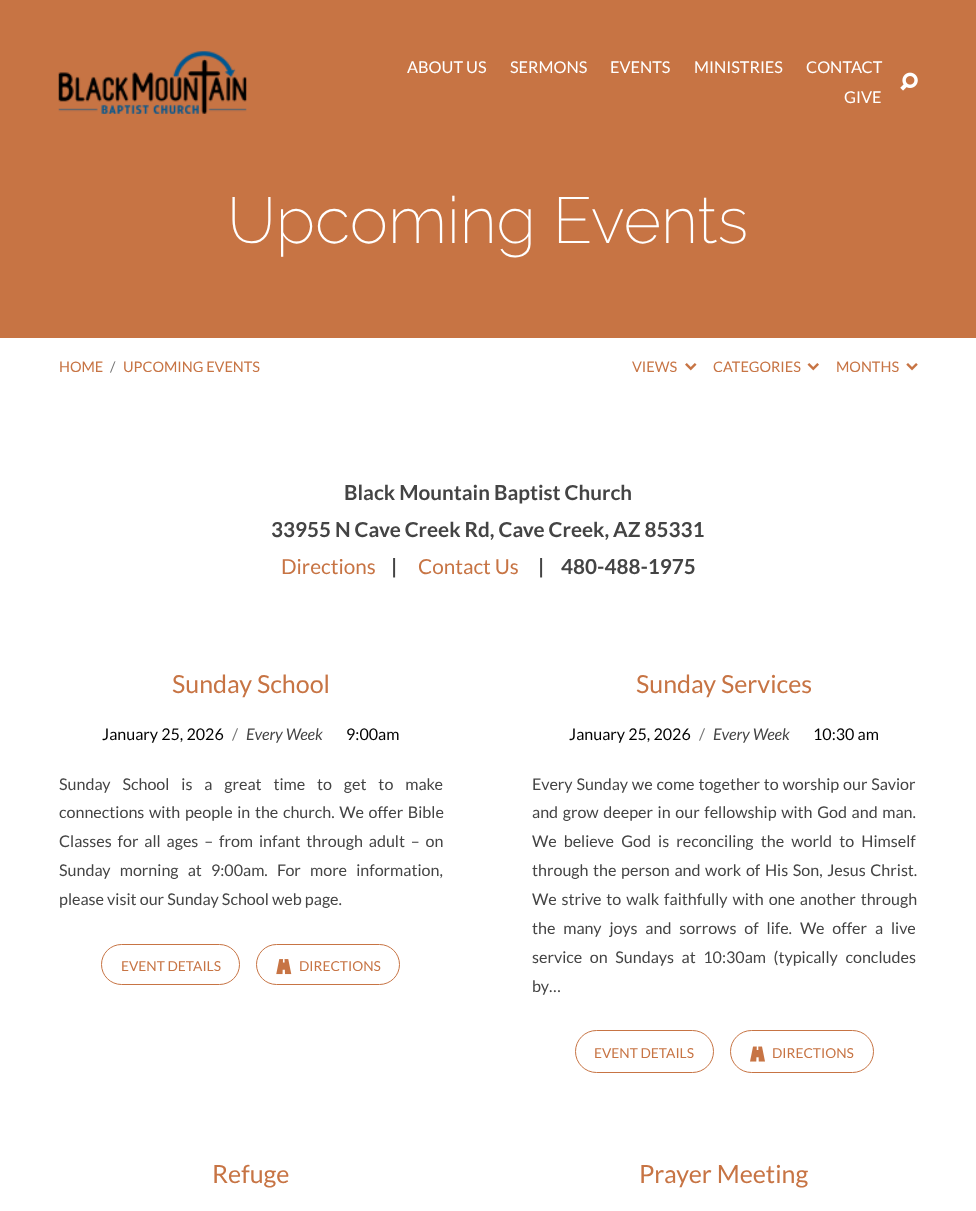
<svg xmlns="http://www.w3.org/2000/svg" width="976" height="1211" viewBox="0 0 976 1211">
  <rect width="100%" height="100%" fill="#ffffff"/>
  <rect x="0" y="0" width="976" height="338" fill="#c77444"/>
  <image x="58" y="51" width="189" height="63" href="img1.png"/>
  <text x="407" y="73" font-family="Lato" font-size="16.25" fill="#ffffff">ABOUT US</text>
  <text x="510" y="73" font-family="Lato" font-size="16.25" fill="#ffffff">SERMONS</text>
  <text x="610" y="73" font-family="Lato" font-size="16.25" fill="#ffffff">EVENTS</text>
  <text x="694" y="73" font-family="Lato" font-size="16.25" fill="#ffffff">MINISTRIES</text>
  <text x="806" y="73" font-family="Lato" font-size="16.25" fill="#ffffff">CONTACT</text>
  <text x="844" y="103" font-family="Lato" font-size="16.25" fill="#ffffff">GIVE</text>
  <image x="900" y="72" width="18" height="19" href="img2.png"/>
  <text x="227" y="243" font-family="Raleway" font-size="64.75" font-weight="200" fill="#ffffff">Upcoming Events</text>
  <text x="59" y="372" font-family="Lato" font-size="14.5" fill="#c77444">HOME</text>
  <text x="110" y="372" font-family="Lato" font-size="14.5" fill="#777777">/</text>
  <text x="123" y="372" font-family="Lato" font-size="14.5" fill="#c77444">UPCOMING EVENTS</text>
  <text x="632" y="372" font-family="Lato" font-size="14.5" fill="#c77444">VIEWS</text>
  <image x="685" y="363" width="12" height="8" href="img3.png"/>
  <text x="713" y="372" font-family="Lato" font-size="14.5" fill="#c77444">CATEGORIES</text>
  <image x="807" y="363" width="12" height="8" href="img4.png"/>
  <text x="836" y="372" font-family="Lato" font-size="14.5" fill="#c77444">MONTHS</text>
  <image x="906" y="363" width="12" height="8" href="img5.png"/>
  <text x="344" y="500" font-family="Lato" font-size="20.7" font-weight="bold" fill="#444444">Black Mountain Baptist Church</text>
  <text x="271" y="537" font-family="Lato" font-size="20.7" font-weight="bold" fill="#444444">33955 N Cave Creek Rd, Cave Creek, AZ 85331</text>
  <text x="281" y="574" font-family="Lato" font-size="20.7" fill="#c77444">Directions</text>
  <text x="391" y="574" font-family="Lato" font-size="20.7" font-weight="bold" fill="#444444">|</text>
  <text x="418" y="574" font-family="Lato" font-size="20.7" fill="#c77444">Contact Us</text>
  <text x="538" y="574" font-family="Lato" font-size="20.7" font-weight="bold" fill="#444444">|</text>
  <text x="561" y="574" font-family="Lato" font-size="20.7" font-weight="bold" fill="#444444">480-488-1975</text>
  <text x="172" y="693" font-family="Lato" font-size="25" fill="#c77444">Sunday School</text>
  <text x="102" y="740" font-family="Lato" font-size="16.1" fill="#000000">January 25, 2026</text>
  <text x="232" y="740" font-family="Lato" font-size="16.1" fill="#777777">/</text>
  <text x="246" y="740" font-family="Lato" font-size="16.1" font-style="italic" fill="#444444">Every Week</text>
  <text x="346" y="740" font-family="Lato" font-size="16.1" fill="#000000">9:00am</text>
  <text x="59" y="790" word-spacing="8.75" font-family="Lato" font-size="16.1" fill="#444444">Sunday School is a great time to get to make</text>
  <text x="59" y="818" word-spacing="1.5" font-family="Lato" font-size="16.1" fill="#444444">connections with people in the church. We offer Bible</text>
  <text x="59" y="847" word-spacing="2.75" font-family="Lato" font-size="16.1" fill="#444444">Classes for all ages – from infant through adult – on</text>
  <text x="59" y="876" word-spacing="6" font-family="Lato" font-size="16.1" fill="#444444">Sunday morning at 9:00am. For more information,</text>
  <text x="59" y="905" font-family="Lato" font-size="16.1" fill="#444444">please visit our Sunday School web page.</text>
  <rect x="101.5" y="944.5" width="138" height="40" rx="20" fill="none" stroke="#c77444"/>
  <text x="121" y="971" font-family="Lato" font-size="13.75" fill="#c77444">EVENT DETAILS</text>
  <rect x="256.5" y="944.5" width="143" height="40" rx="20" fill="none" stroke="#c77444"/>
  <image x="276" y="959" width="16" height="16" href="img6.png"/>
  <text x="299" y="971" font-family="Lato" font-size="13.75" fill="#c77444">DIRECTIONS</text>
  <text x="636" y="693" font-family="Lato" font-size="25" fill="#c77444">Sunday Services</text>
  <text x="569" y="740" font-family="Lato" font-size="16.1" fill="#000000">January 25, 2026</text>
  <text x="699" y="740" font-family="Lato" font-size="16.1" fill="#777777">/</text>
  <text x="713" y="740" font-family="Lato" font-size="16.1" font-style="italic" fill="#444444">Every Week</text>
  <text x="813" y="740" font-family="Lato" font-size="16.1" fill="#000000">10:30 am</text>
  <text x="532" y="790" word-spacing="0.75" font-family="Lato" font-size="16.1" fill="#444444">Every Sunday we come together to worship our Savior</text>
  <text x="532" y="818" word-spacing="1.5" font-family="Lato" font-size="16.1" fill="#444444">and grow deeper in our fellowship with God and man.</text>
  <text x="532" y="847" word-spacing="4" font-family="Lato" font-size="16.1" fill="#444444">We believe God is reconciling the world to Himself</text>
  <text x="532" y="876" word-spacing="1.5" font-family="Lato" font-size="16.1" fill="#444444">through the person and work of His Son, Jesus Christ.</text>
  <text x="532" y="905" word-spacing="1.75" font-family="Lato" font-size="16.1" fill="#444444">We strive to walk faithfully with one another through</text>
  <text x="532" y="934" word-spacing="4.75" font-family="Lato" font-size="16.1" fill="#444444">the many joys and sorrows of life. We offer a live</text>
  <text x="532" y="963" word-spacing="4.5" font-family="Lato" font-size="16.1" fill="#444444">service on Sundays at 10:30am (typically concludes</text>
  <text x="532" y="992" font-family="Lato" font-size="16.1" fill="#444444">by…</text>
  <rect x="575.5" y="1030.5" width="138" height="42" rx="21" fill="none" stroke="#c77444"/>
  <text x="594" y="1058" font-family="Lato" font-size="13.75" fill="#c77444">EVENT DETAILS</text>
  <rect x="730.5" y="1030.5" width="143" height="42" rx="21" fill="none" stroke="#c77444"/>
  <image x="750" y="1046" width="15" height="16" href="img7.png"/>
  <text x="772" y="1058" font-family="Lato" font-size="13.75" fill="#c77444">DIRECTIONS</text>
  <text x="212" y="1183" font-family="Lato" font-size="25" fill="#c77444">Refuge</text>
  <text x="639" y="1183" font-family="Lato" font-size="25" fill="#c77444">Prayer Meeting</text>
</svg>
